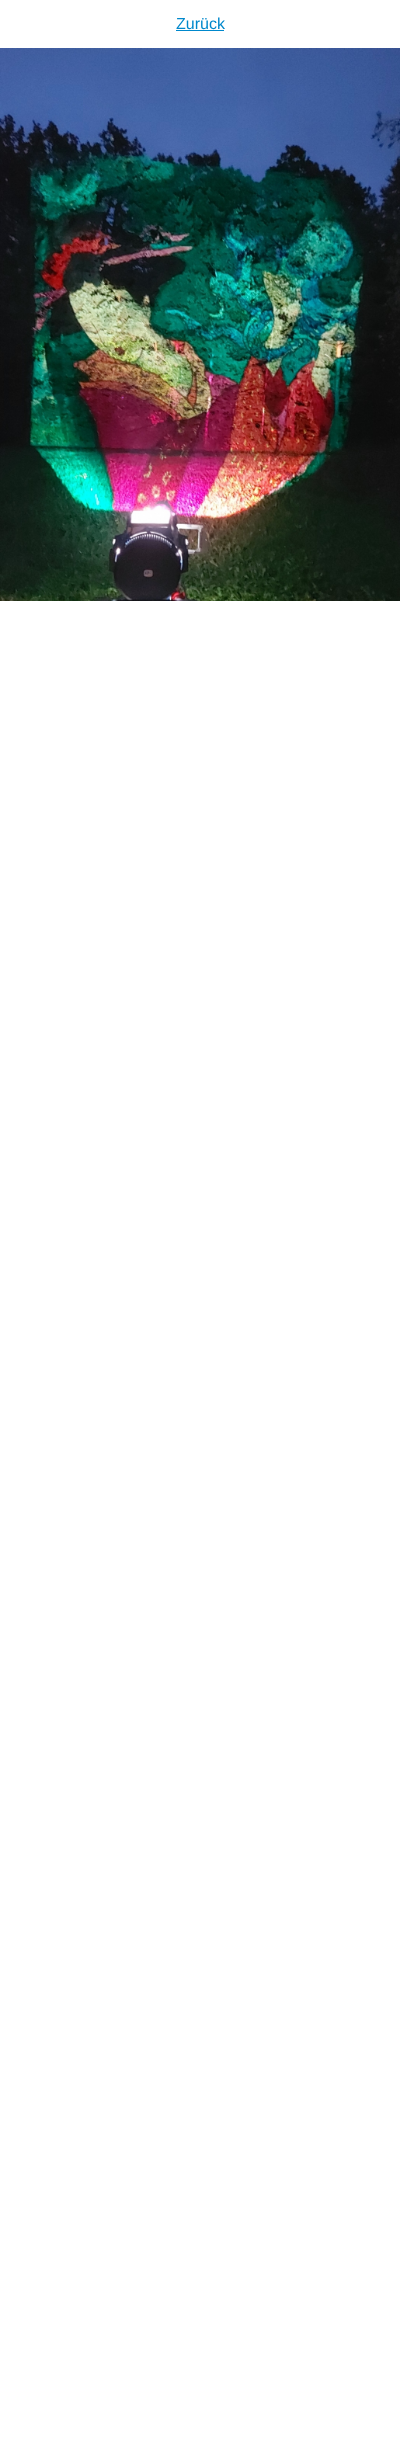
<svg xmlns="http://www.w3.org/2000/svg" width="400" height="2456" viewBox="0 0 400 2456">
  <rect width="100%" height="100%" fill="#ffffff"/>
  <text x="176" y="29" font-family="Liberation Sans" font-size="16" fill="#0088cc">Zurück</text>
  <rect x="176" y="30" width="48" height="1" fill="#0088cc"/>
  <image x="0" y="48" width="400" height="553" href="img1.png"/>
</svg>
